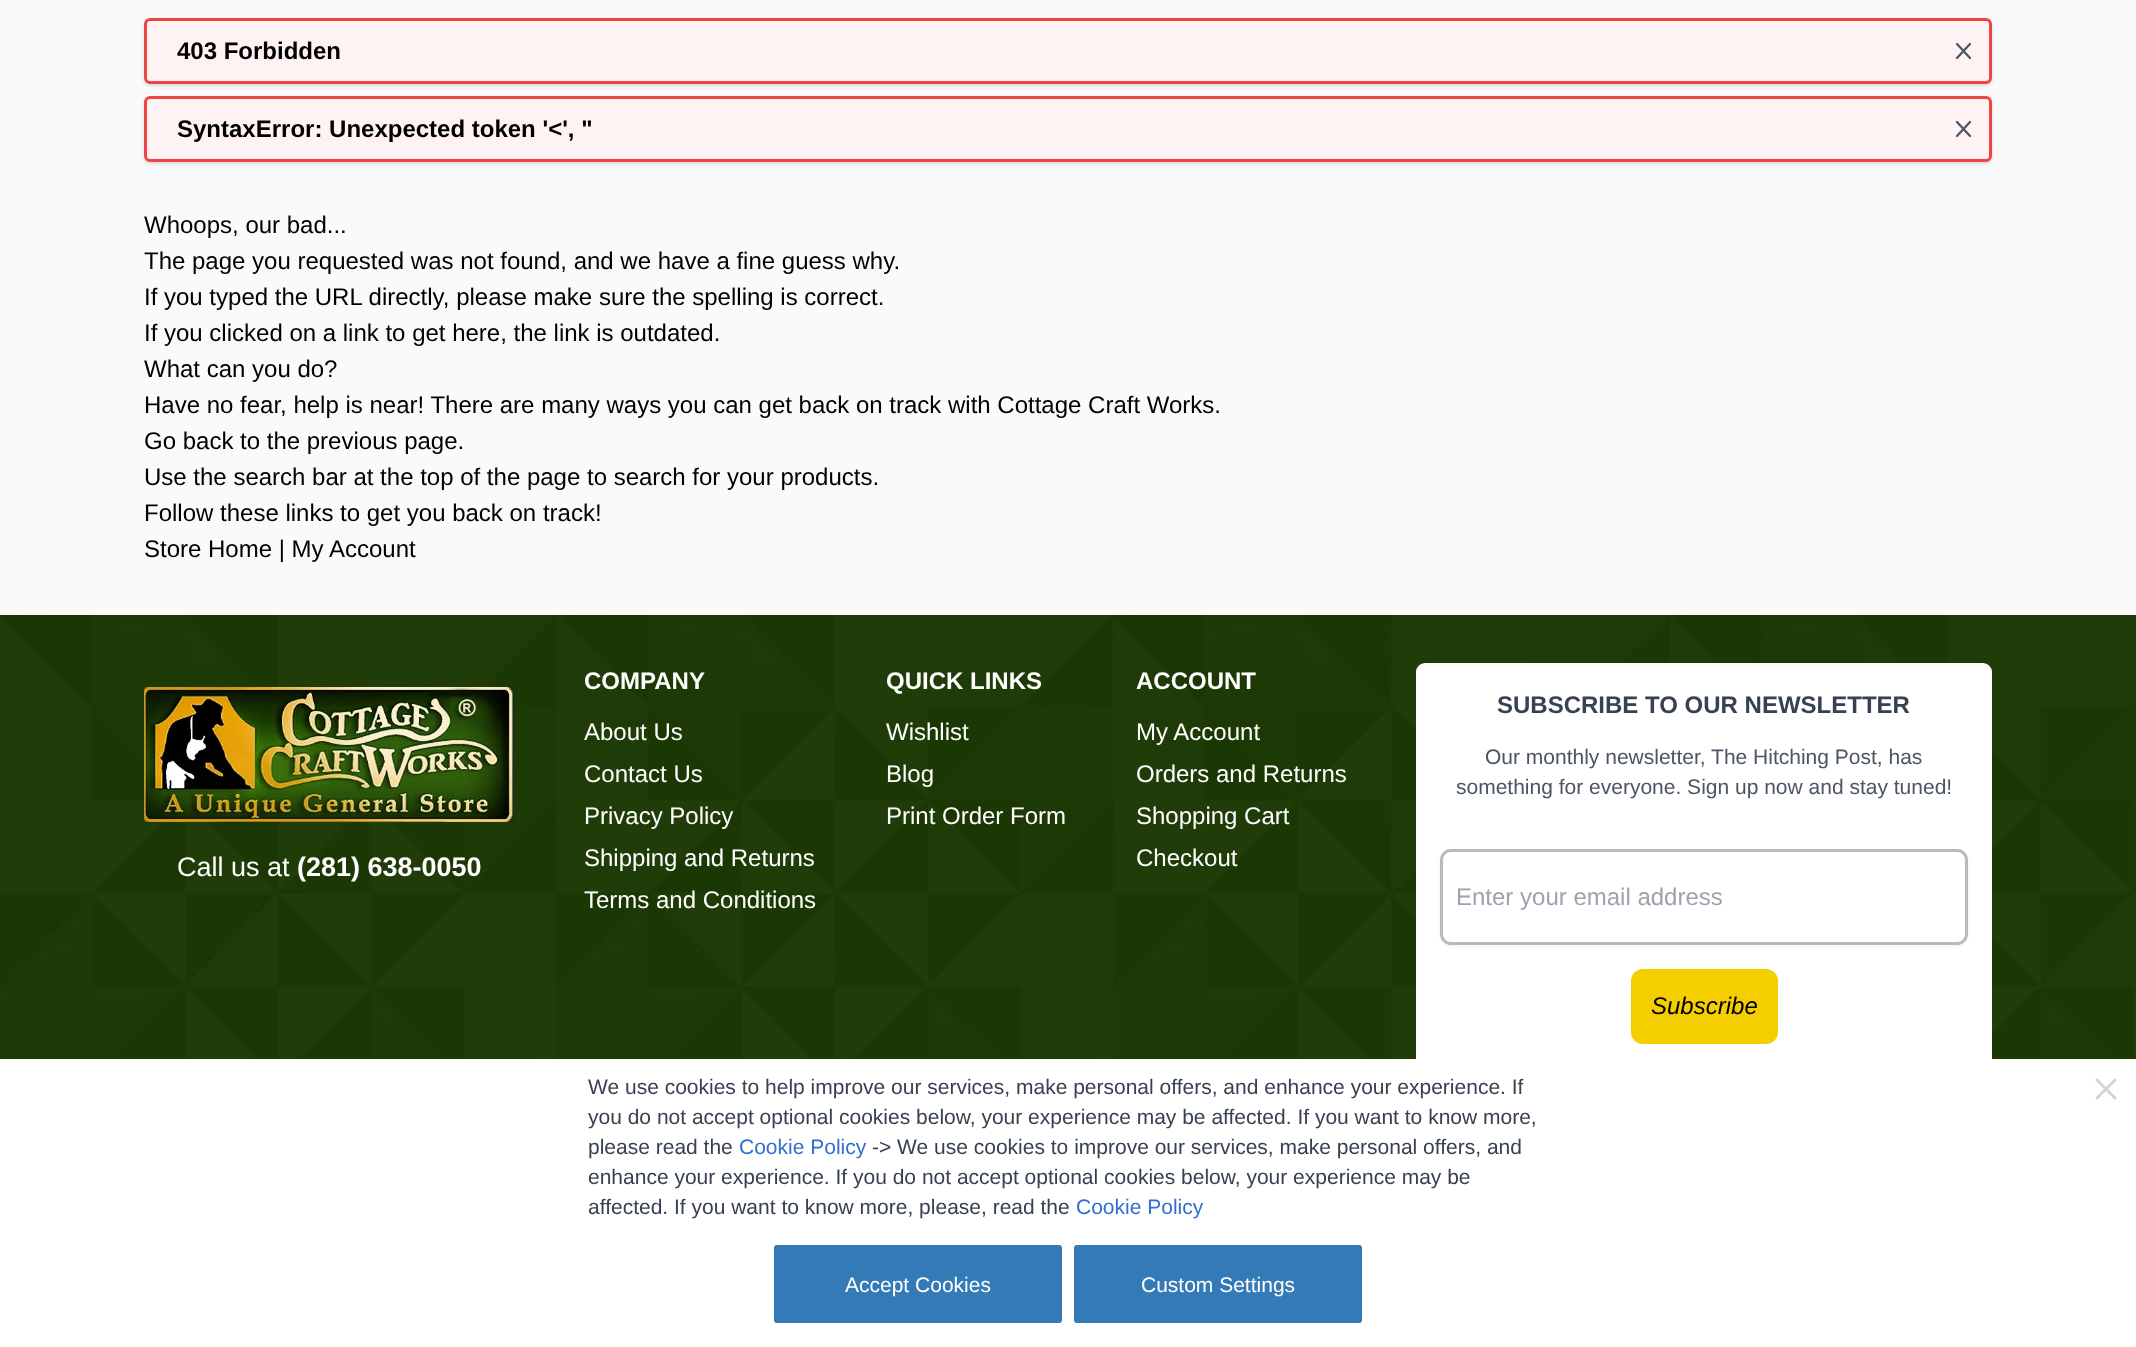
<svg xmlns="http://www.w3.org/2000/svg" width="2136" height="1347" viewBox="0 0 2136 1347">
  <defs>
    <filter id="blur1" x="-50%" y="-200%" width="200%" height="500%"><feGaussianBlur stdDeviation="1.5"/></filter>
    <filter id="blur2" x="-50%" y="-200%" width="200%" height="500%"><feGaussianBlur stdDeviation="2"/></filter>
  </defs>
  <rect width="100%" height="100%" fill="#fafafa"/>
  <rect x="146" y="21" width="1845" height="63" rx="5" fill="#000000" fill-opacity="0.1" filter="url(#blur1)"/>
  <rect x="144" y="20" width="1848" height="66" rx="6" fill="#000000" fill-opacity="0.1" filter="url(#blur2)"/>
  <rect x="145.5" y="19.5" width="1845" height="63" rx="4.5" fill="#fef2f2" stroke="#ef4444" stroke-width="3"/>
  <text x="177" y="59" font-family="Liberation Sans" font-size="24" font-weight="bold" fill="#000000">403 Forbidden</text>
  <path d="M1957 58L1970 44M1957 44L1970 58" fill="none" stroke="#4b5563" stroke-width="2.2" stroke-linecap="round" stroke-linejoin="round"/>
  <rect x="146" y="99" width="1845" height="63" rx="5" fill="#000000" fill-opacity="0.1" filter="url(#blur1)"/>
  <rect x="144" y="98" width="1848" height="66" rx="6" fill="#000000" fill-opacity="0.1" filter="url(#blur2)"/>
  <rect x="145.5" y="97.5" width="1845" height="63" rx="4.5" fill="#fef2f2" stroke="#ef4444" stroke-width="3"/>
  <text x="177" y="137" font-family="Liberation Sans" font-size="24" font-weight="bold" fill="#000000">SyntaxError: Unexpected token '&lt;', "</text>
  <path d="M1957 136L1970 122M1957 122L1970 136" fill="none" stroke="#4b5563" stroke-width="2.2" stroke-linecap="round" stroke-linejoin="round"/>
  <text x="144" y="233" font-family="Liberation Sans" font-size="24" fill="#000000">Whoops, our bad...</text>
  <text x="144" y="269" font-family="Liberation Sans" font-size="24" fill="#000000">The page you requested was not found, and we have a fine guess why.</text>
  <text x="144" y="305" font-family="Liberation Sans" font-size="24" fill="#000000">If you typed the URL directly, please make sure the spelling is correct.</text>
  <text x="144" y="341" font-family="Liberation Sans" font-size="24" fill="#000000">If you clicked on a link to get here, the link is outdated.</text>
  <text x="144" y="377" font-family="Liberation Sans" font-size="24" fill="#000000">What can you do?</text>
  <text x="144" y="413" font-family="Liberation Sans" font-size="24" fill="#000000">Have no fear, help is near! There are many ways you can get back on track with Cottage Craft Works.</text>
  <text x="144" y="449" font-family="Liberation Sans" font-size="24" fill="#000000">Go back to the previous page.</text>
  <text x="144" y="485" font-family="Liberation Sans" font-size="24" fill="#000000">Use the search bar at the top of the page to search for your products.</text>
  <text x="144" y="521" font-family="Liberation Sans" font-size="24" fill="#000000">Follow these links to get you back on track!</text>
  <text x="144" y="557" font-family="Liberation Sans" font-size="24" fill="#000000">Store Home | My Account</text>
  <rect x="0" y="615" width="2136" height="444" fill="#1a3702"/>
  <image x="0" y="615" width="2136" height="444" href="img1.png"/>
  <image x="144" y="687" width="370" height="135" href="img2.png"/>
  <text x="177" y="876" font-family="Liberation Sans" font-size="27" fill="#ffffff">Call us at</text>
  <text x="297" y="876" font-family="Liberation Sans" font-size="27" font-weight="bold" fill="#ffffff">(281) 638-0050</text>
  <text x="584" y="689" font-family="Liberation Sans" font-size="24" font-weight="bold" fill="#ffffff">COMPANY</text>
  <text x="584" y="740" font-family="Liberation Sans" font-size="24" fill="#ffffff">About Us</text>
  <text x="584" y="782" font-family="Liberation Sans" font-size="24" fill="#ffffff">Contact Us</text>
  <text x="584" y="824" font-family="Liberation Sans" font-size="24" fill="#ffffff">Privacy Policy</text>
  <text x="584" y="866" font-family="Liberation Sans" font-size="24" fill="#ffffff">Shipping and Returns</text>
  <text x="584" y="908" font-family="Liberation Sans" font-size="24" fill="#ffffff">Terms and Conditions</text>
  <text x="886" y="689" font-family="Liberation Sans" font-size="24" font-weight="bold" fill="#ffffff">QUICK LINKS</text>
  <text x="886" y="740" font-family="Liberation Sans" font-size="24" fill="#ffffff">Wishlist</text>
  <text x="886" y="782" font-family="Liberation Sans" font-size="24" fill="#ffffff">Blog</text>
  <text x="886" y="824" font-family="Liberation Sans" font-size="24" fill="#ffffff">Print Order Form</text>
  <text x="1136" y="689" font-family="Liberation Sans" font-size="24" font-weight="bold" fill="#ffffff">ACCOUNT</text>
  <text x="1136" y="740" font-family="Liberation Sans" font-size="24" fill="#ffffff">My Account</text>
  <text x="1136" y="782" font-family="Liberation Sans" font-size="24" fill="#ffffff">Orders and Returns</text>
  <text x="1136" y="824" font-family="Liberation Sans" font-size="24" fill="#ffffff">Shopping Cart</text>
  <text x="1136" y="866" font-family="Liberation Sans" font-size="24" fill="#ffffff">Checkout</text>
  <rect x="1416" y="663" width="576" height="405" rx="9" fill="#ffffff"/>
  <text x="1497" y="713" font-family="Liberation Sans" font-size="24" font-weight="bold" fill="#374151">SUBSCRIBE TO OUR NEWSLETTER</text>
  <text x="1485" y="764" font-family="Liberation Sans" font-size="21" fill="#4b5563">Our monthly newsletter, The Hitching Post, has</text>
  <text x="1456" y="794" font-family="Liberation Sans" font-size="21" fill="#4b5563">something for everyone. Sign up now and stay tuned!</text>
  <rect x="1440" y="851" width="528" height="96" rx="11" fill="#000000" fill-opacity="0.05" filter="url(#blur1)"/>
  <rect x="1441.5" y="850.5" width="525" height="93" rx="9.5" fill="#ffffff" stroke="#bababa" stroke-width="3"/>
  <text x="1456" y="905" font-family="Liberation Sans" font-size="24" fill="#9ca3af">Enter your email address</text>
  <rect x="1632" y="970" width="145" height="73" rx="11" fill="#f5ce00" stroke="#f5ce00" stroke-width="2"/>
  <text x="1651" y="1014" font-family="Liberation Sans" font-size="24" font-style="italic" fill="#000000">Subscribe</text>
  <rect x="0" y="1059" width="2136" height="288" fill="#ffffff"/>
  <text x="588" y="1094" font-family="Liberation Sans" font-size="21" fill="#374151">We use cookies to help improve our services, make personal offers, and enhance your experience. If</text>
  <text x="588" y="1124" font-family="Liberation Sans" font-size="21" fill="#374151">you do not accept optional cookies below, your experience may be affected. If you want to know more,</text>
  <text x="588" y="1154" font-family="Liberation Sans" font-size="21" fill="#374151">please read the</text>
  <text x="739" y="1154" font-family="Liberation Sans" font-size="21" fill="#326ed1">Cookie Policy</text>
  <text x="872" y="1154" font-family="Liberation Sans" font-size="21" fill="#374151">-&gt; We use cookies to improve our services, make personal offers, and</text>
  <text x="588" y="1184" font-family="Liberation Sans" font-size="21" fill="#374151">enhance your experience. If you do not accept optional cookies below, your experience may be</text>
  <text x="588" y="1214" font-family="Liberation Sans" font-size="21" fill="#374151">affected. If you want to know more, please, read the</text>
  <text x="1076" y="1214" font-family="Liberation Sans" font-size="21" fill="#326ed1">Cookie Policy</text>
  <rect x="774" y="1245" width="288" height="78" rx="3" fill="#337ab7"/>
  <text x="845" y="1292" font-family="Liberation Sans" font-size="21" fill="#ffffff">Accept Cookies</text>
  <rect x="1074" y="1245" width="288" height="78" rx="3" fill="#337ab7"/>
  <text x="1141" y="1292" font-family="Liberation Sans" font-size="21" fill="#ffffff">Custom Settings</text>
  <path d="M2097 1098L2115 1080M2097 1080L2115 1098" fill="none" stroke="#d1d5db" stroke-width="3" stroke-linecap="round" stroke-linejoin="round"/>
</svg>
